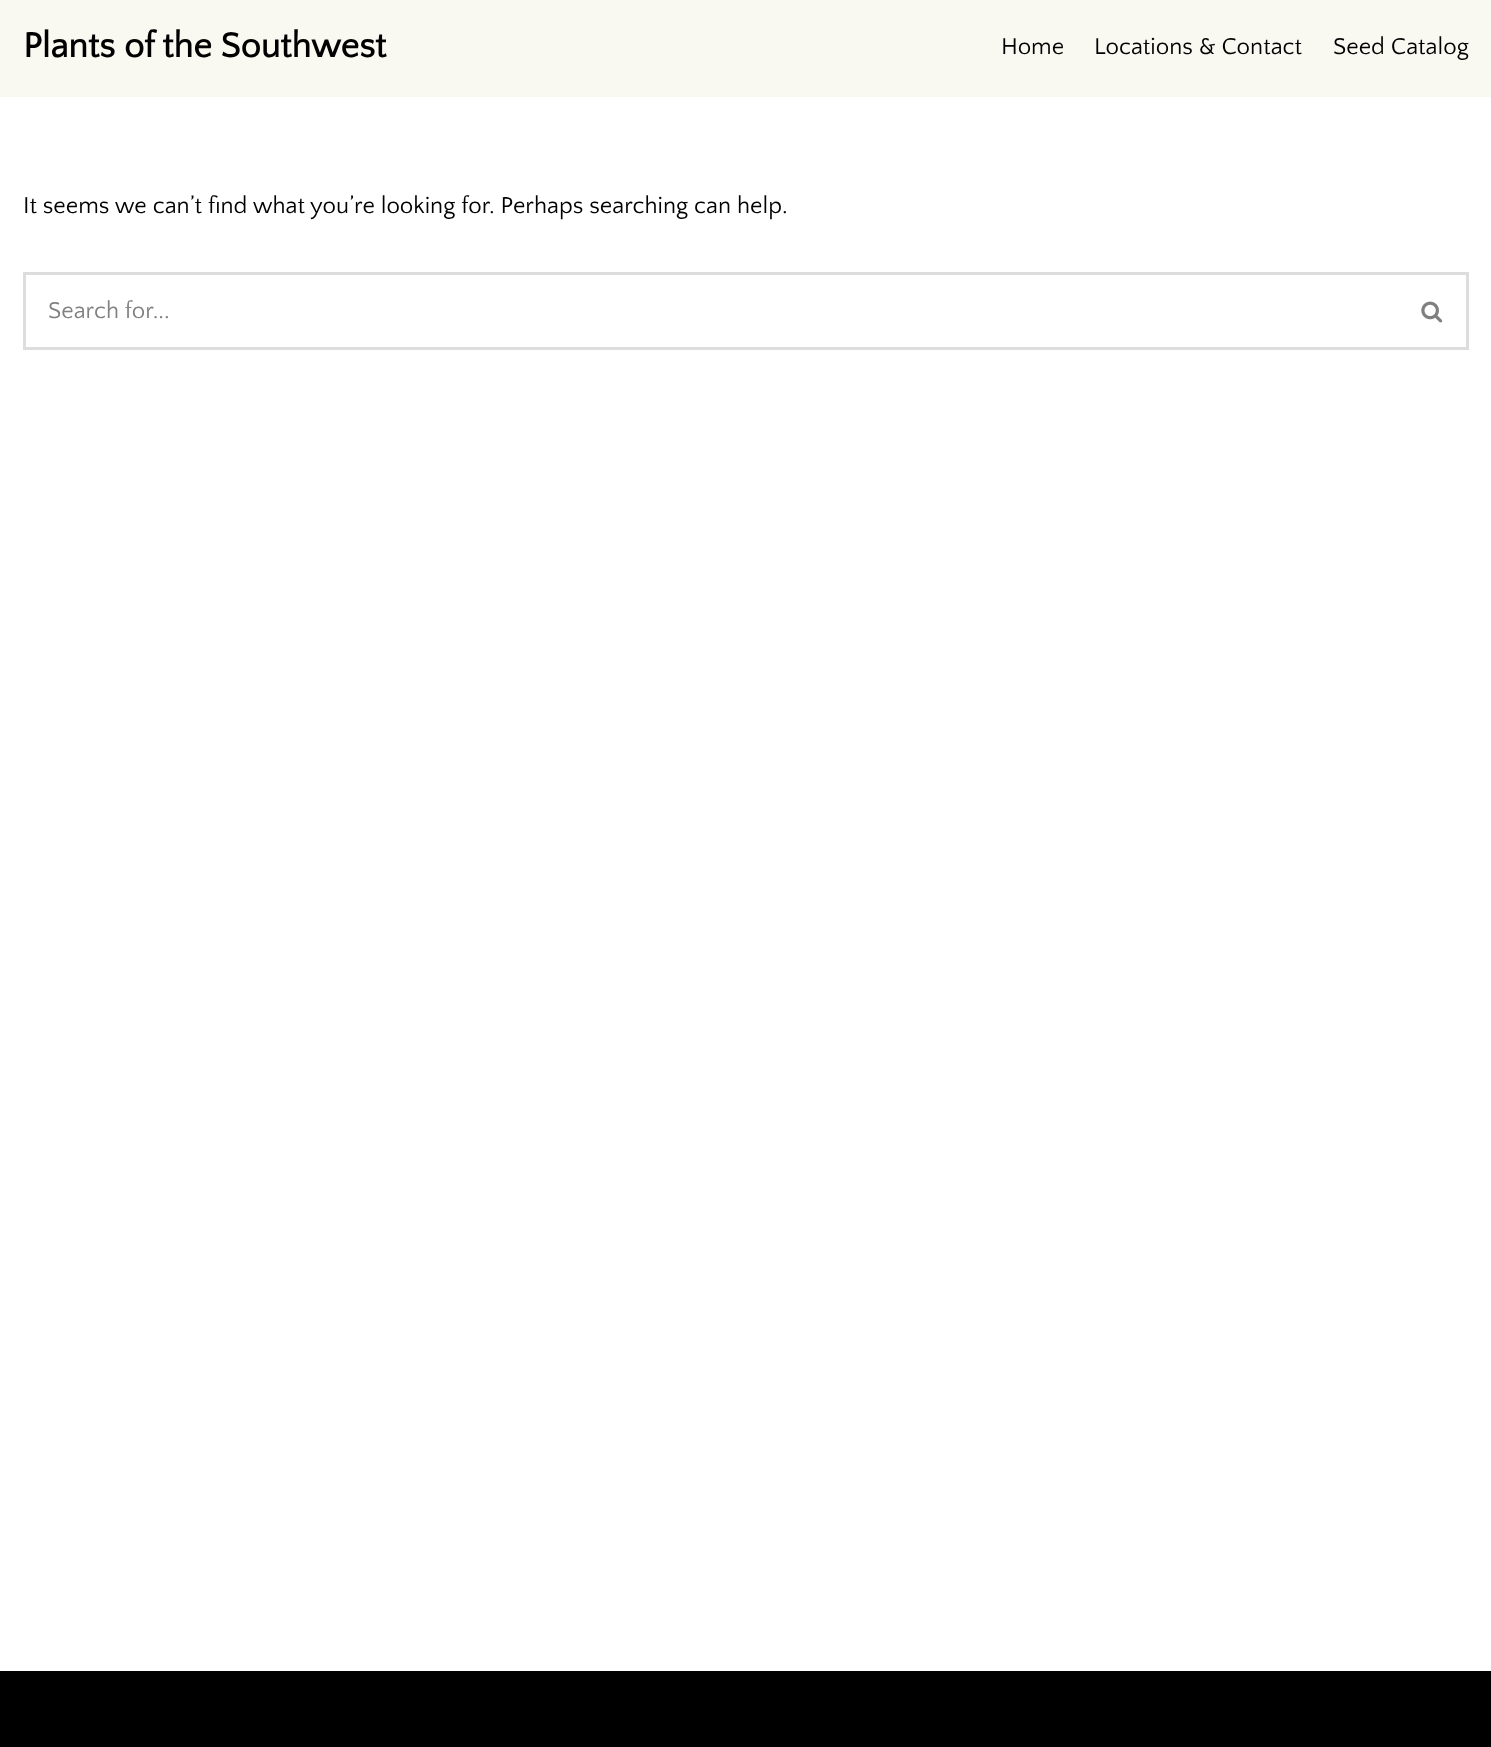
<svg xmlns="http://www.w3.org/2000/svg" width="1491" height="1747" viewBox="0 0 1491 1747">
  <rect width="100%" height="100%" fill="#ffffff"/>
  <rect x="0" y="0" width="1491" height="97" fill="#f9f8f1"/>
  <text x="23" y="57" font-family="Quattrocento Sans" font-size="36" font-weight="bold" fill="#000000">Plants of the Southwest</text>
  <text x="1001" y="54" font-family="Quattrocento Sans" font-size="24" fill="#000000">Home</text>
  <text x="1094" y="54" font-family="Quattrocento Sans" font-size="24" fill="#000000">Locations &amp; Contact</text>
  <text x="1333" y="54" font-family="Quattrocento Sans" font-size="24" fill="#000000">Seed Catalog</text>
  <text x="23" y="213" font-family="Quattrocento Sans" font-size="24" fill="#000000">It seems we can’t find what you’re looking for. Perhaps searching can help.</text>
  <rect x="23" y="272" width="1446" height="3" fill="#dddddd"/>
  <rect x="23" y="347" width="1375" height="3" fill="#dddddd"/>
  <rect x="23" y="272" width="3" height="78" fill="#dddddd"/>
  <text x="48" y="318" font-family="Quattrocento Sans" font-size="24" fill="#808080">Search for...</text>
  <rect x="1466" y="272" width="3" height="78" fill="#dddddd"/>
  <rect x="1398" y="347" width="71" height="3" fill="#dddddd"/>
  <image x="1421" y="301" width="22" height="22" href="img1.png"/>
  <rect x="0" y="1671" width="1491" height="76" fill="#000000"/>
</svg>
